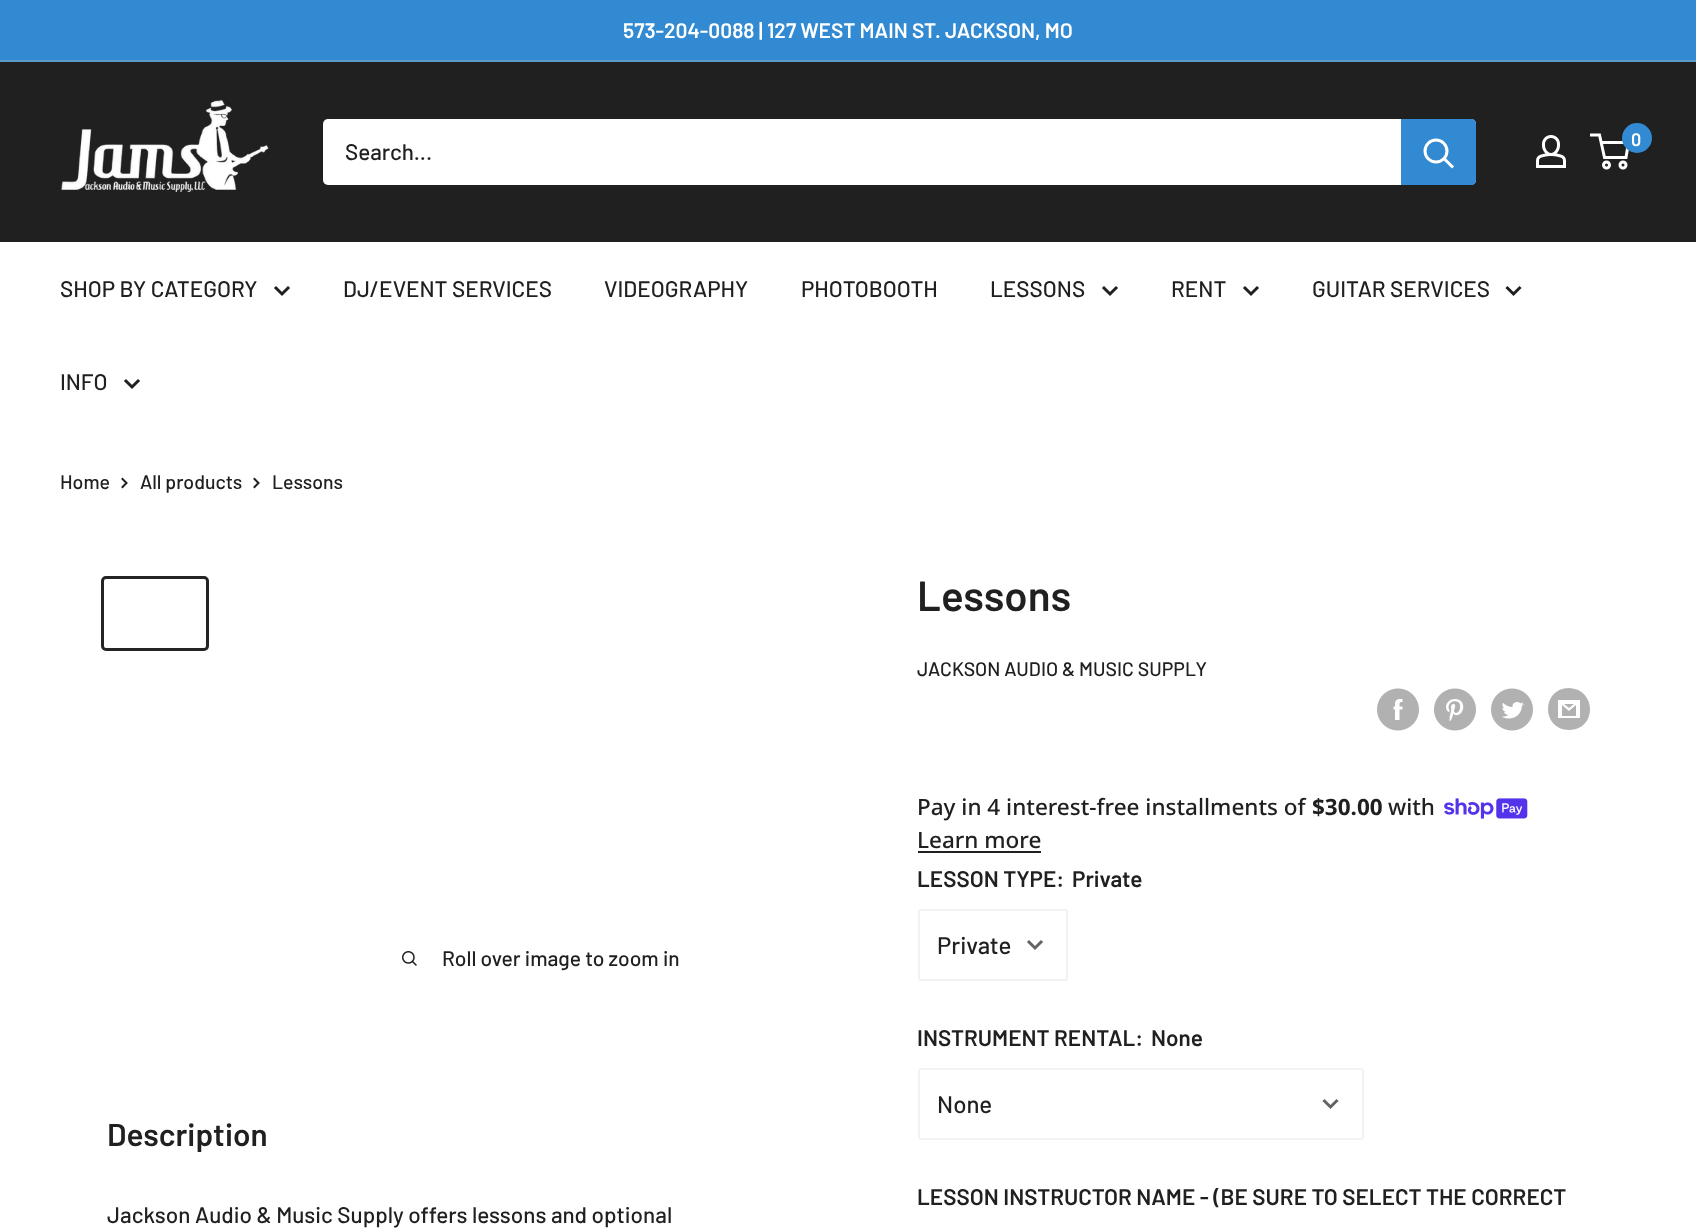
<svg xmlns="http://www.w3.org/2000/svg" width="1696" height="1232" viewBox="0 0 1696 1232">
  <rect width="100%" height="100%" fill="#ffffff"/>
  <rect x="0" y="0" width="1696" height="60" fill="#328ad2"/>
  <rect x="0" y="60" width="1696" height="2" fill="#5d9bcd"/>
  <text x="623" y="38" font-family="Barlow" font-size="21" font-weight="600" fill="#ffffff">573-204-0088 | 127 WEST MAIN ST. JACKSON, MO</text>
  <rect x="0" y="62" width="1696" height="180" fill="#202020"/>
  <image x="61" y="99" width="208" height="93" href="img1.png"/>
  <image x="1536" y="135" width="30" height="33" href="img2.png"/>
  <circle cx="1606.5" cy="165" r="3" fill="none" stroke="#ffffff" stroke-width="3"/>
  <circle cx="1623" cy="165" r="3" fill="none" stroke="#ffffff" stroke-width="3"/>
  <path d="M1601 142.5H1628.5L1626 157.5H1604.5L1599.5 135H1590" fill="none" stroke="#ffffff" stroke-width="3"/>
  <circle cx="1637" cy="138" r="15" fill="#328ad2"/>
  <text x="1631" y="146" font-family="Barlow" font-size="18" font-weight="600" fill="#ffffff">0</text>
  <rect x="323" y="119" width="1153" height="66" rx="5" fill="#ffffff"/>
  <text x="345" y="160" font-family="Barlow" font-size="22.5" font-weight="500" fill="#202020">Search...</text>
  <path d="M1401 119H1471C1474 119 1476 121 1476 124V180C1476 183 1474 185 1471 185H1401Z" fill="#328ad2"/>
  <path d="M1452 166.5L1444.5 159" fill="none" stroke="#ffffff" stroke-width="3" stroke-linecap="square"/>
  <circle cx="1436" cy="151" r="11" fill="none" stroke="#ffffff" stroke-width="3"/>
  <text x="60" y="297" font-family="Barlow" font-size="22.5" font-weight="500" fill="#202020">SHOP BY CATEGORY</text>
  <path d="M288 288L282 294L276 288" fill="none" stroke="#202020" stroke-width="3" stroke-linecap="square"/>
  <text x="343" y="297" font-family="Barlow" font-size="22.5" font-weight="500" fill="#202020">DJ/EVENT SERVICES</text>
  <text x="604" y="297" font-family="Barlow" font-size="22.5" font-weight="500" fill="#202020">VIDEOGRAPHY</text>
  <text x="801" y="297" font-family="Barlow" font-size="22.5" font-weight="500" fill="#202020">PHOTOBOOTH</text>
  <text x="990" y="297" font-family="Barlow" font-size="22.5" font-weight="500" fill="#202020">LESSONS</text>
  <path d="M1116 288L1110 294L1104 288" fill="none" stroke="#202020" stroke-width="3" stroke-linecap="square"/>
  <text x="1171" y="297" font-family="Barlow" font-size="22.5" font-weight="500" fill="#202020">RENT</text>
  <path d="M1257 288L1251 294L1245 288" fill="none" stroke="#202020" stroke-width="3" stroke-linecap="square"/>
  <text x="1312" y="297" font-family="Barlow" font-size="22.5" font-weight="500" fill="#202020">GUITAR SERVICES</text>
  <path d="M1519.5 288L1513.5 294L1507.5 288" fill="none" stroke="#202020" stroke-width="3" stroke-linecap="square"/>
  <text x="60" y="390" font-family="Barlow" font-size="22.5" font-weight="500" fill="#202020">INFO</text>
  <path d="M138 381L132 387L126 381" fill="none" stroke="#202020" stroke-width="3" stroke-linecap="square"/>
  <text x="60" y="489" font-family="Barlow" font-size="19.5" font-weight="500" fill="#202020">Home</text>
  <path d="M122.5 479L126.5 483L122.5 487" fill="none" stroke="#202020" stroke-width="2" stroke-linecap="square"/>
  <text x="140" y="489" font-family="Barlow" font-size="19.5" font-weight="500" fill="#202020">All products</text>
  <path d="M254.5 479L258.5 483L254.5 487" fill="none" stroke="#202020" stroke-width="2" stroke-linecap="square"/>
  <text x="272" y="489" font-family="Barlow" font-size="19.5" font-weight="500" fill="#202020">Lessons</text>
  <rect x="102.5" y="577.5" width="105" height="72" rx="3.5" fill="none" stroke="#242424" stroke-width="3"/>
  <image x="402" y="951" width="15" height="15" href="img3.png"/>
  <text x="442" y="966" font-family="Barlow" font-size="21" font-weight="500" fill="#202020">Roll over image to zoom in</text>
  <text x="917" y="611" font-family="Barlow" font-size="42" font-weight="600" fill="#202020">Lessons</text>
  <text x="917" y="676" font-family="Barlow" font-size="19.5" font-weight="500" fill="#202020">JACKSON AUDIO &amp; MUSIC SUPPLY</text>
  <image x="1377" y="688" width="42" height="43" href="img4.png"/>
  <image x="1434" y="688" width="42" height="43" href="img5.png"/>
  <image x="1491" y="688" width="42" height="43" href="img6.png"/>
  <path d="M1569 730C1541 730 1541 688 1569 688C1597 689 1597 730 1569 730ZM1564 704H1574L1569 708ZM1576 705V716H1562V705L1569 711ZM1580 700H1558V718H1580Z" fill="#b1b1b1"/>
  <text x="917" y="815" font-family="Noto Sans" font-size="22.5" font-weight="500" fill="#202020">Pay in 4 interest-free installments of</text>
  <text x="1312" y="815" font-family="Noto Sans" font-size="22.5" font-weight="bold" fill="#202020">$30.00</text>
  <text x="1388" y="815" font-family="Noto Sans" font-size="22.5" font-weight="500" fill="#202020">with</text>
  <image x="1444" y="798" width="84" height="21" href="img7.png"/>
  <text x="917" y="848" font-family="Noto Sans" font-size="22.5" font-weight="500" fill="#202020">Learn more</text>
  <rect x="918" y="851" width="123" height="2" fill="#202020"/>
  <text x="917" y="887" font-family="Barlow" font-size="22.5" font-weight="600" fill="#202020">LESSON TYPE:</text>
  <text x="1072" y="887" font-family="Barlow" font-size="22.5" font-weight="600" fill="#202020">Private</text>
  <rect x="919" y="910" width="148" height="70" rx="2" fill="none" stroke="#f2f2f2" stroke-width="2"/>
  <text x="937" y="954" font-family="Barlow" font-size="24" font-weight="500" fill="#202020">Private</text>
  <path d="M1041 942L1035 948L1029 942" fill="none" stroke="#636363" stroke-width="3" stroke-linecap="square"/>
  <text x="917" y="1046" font-family="Barlow" font-size="22.5" font-weight="600" fill="#202020">INSTRUMENT RENTAL:</text>
  <text x="1151" y="1046" font-family="Barlow" font-size="22.5" font-weight="600" fill="#202020">None</text>
  <rect x="919" y="1069" width="444" height="70" rx="2" fill="none" stroke="#f2f2f2" stroke-width="2"/>
  <text x="937" y="1113" font-family="Barlow" font-size="24" font-weight="500" fill="#202020">None</text>
  <path d="M1336.5 1101L1330.5 1107L1324.5 1101" fill="none" stroke="#636363" stroke-width="3" stroke-linecap="square"/>
  <text x="917" y="1205" font-family="Barlow" font-size="22.5" font-weight="600" fill="#202020">LESSON INSTRUCTOR NAME - (BE SURE TO SELECT THE CORRECT</text>
  <text x="107" y="1146" font-family="Barlow" font-size="31.5" font-weight="600" fill="#202020">Description</text>
  <text x="107" y="1223" font-family="Barlow" font-size="22.5" font-weight="500" fill="#202020">Jackson Audio &amp; Music Supply offers lessons and optional</text>
</svg>
